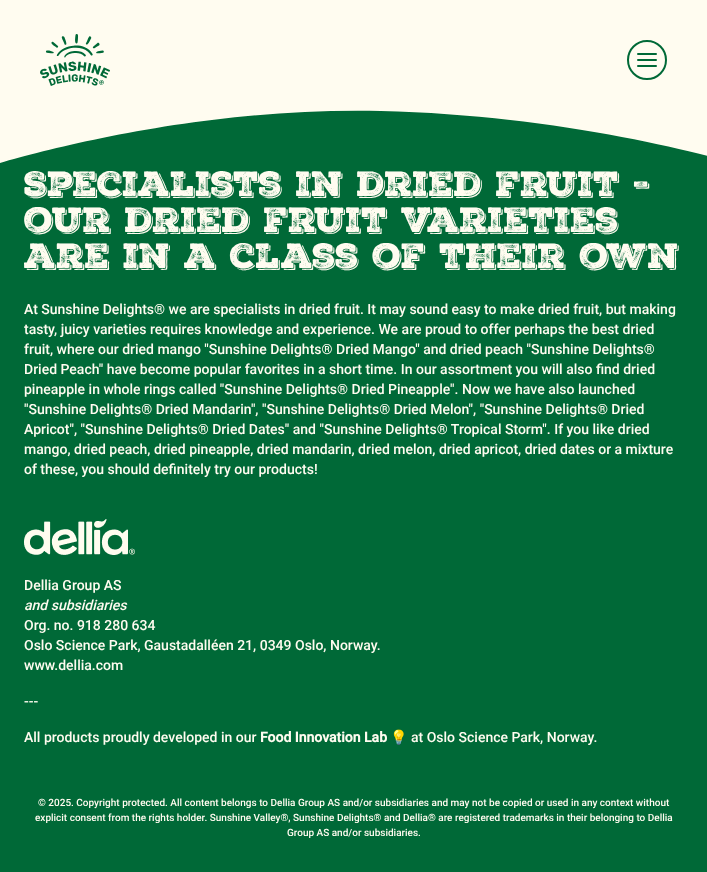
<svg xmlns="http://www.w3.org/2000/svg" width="707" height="872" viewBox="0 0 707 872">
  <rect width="100%" height="100%" fill="#006937"/>
  <rect x="0" y="0" width="707" height="85" fill="#fffcf0"/>
  <path d="M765 172C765 172 597 116 381 111C164 106-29 172-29 172V85H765Z" fill="#fffcf0"/>
  <image x="40" y="34" width="70" height="52" href="img1.png"/>
  <circle cx="647" cy="60" r="19" fill="none" stroke="#006937" stroke-width="2"/>
  <rect x="637" y="53" width="20" height="2" rx="1" fill="#006937"/>
  <rect x="637" y="59" width="20" height="2" rx="1" fill="#006937"/>
  <rect x="637" y="65" width="20" height="2" rx="1" fill="#006937"/>
  <text x="24" y="196" font-family="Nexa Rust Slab" font-size="34" font-weight="900" fill="#fffcf0">Specialists in dried fruit -</text>
  <text x="24" y="232" font-family="Nexa Rust Slab" font-size="34" font-weight="900" fill="#fffcf0">our dried fruit varieties</text>
  <text x="24" y="268" font-family="Nexa Rust Slab" font-size="34" font-weight="900" fill="#fffcf0">are in a class of their own</text>
  <text x="24" y="314" font-family="Roboto" font-size="14" font-weight="500" fill="#fffcf0">At Sunshine Delights® we are specialists in dried fruit. It may sound easy to make dried fruit, but making</text>
  <text x="24" y="334" font-family="Roboto" font-size="14" font-weight="500" fill="#fffcf0">tasty, juicy varieties requires knowledge and experience. We are proud to offer perhaps the best dried</text>
  <text x="24" y="354" font-family="Roboto" font-size="14" font-weight="500" fill="#fffcf0">fruit, where our dried mango "Sunshine Delights® Dried Mango" and dried peach "Sunshine Delights®</text>
  <text x="24" y="374" font-family="Roboto" font-size="14" font-weight="500" fill="#fffcf0">Dried Peach" have become popular favorites in a short time. In our assortment you will also find dried</text>
  <text x="24" y="394" font-family="Roboto" font-size="14" font-weight="500" fill="#fffcf0">pineapple in whole rings called "Sunshine Delights® Dried Pineapple". Now we have also launched</text>
  <text x="24" y="414" font-family="Roboto" font-size="14" font-weight="500" fill="#fffcf0">"Sunshine Delights® Dried Mandarin", "Sunshine Delights® Dried Melon", "Sunshine Delights® Dried</text>
  <text x="24" y="434" font-family="Roboto" font-size="14" font-weight="500" fill="#fffcf0">Apricot", "Sunshine Delights® Dried Dates" and "Sunshine Delights® Tropical Storm". If you like dried</text>
  <text x="24" y="454" font-family="Roboto" font-size="14" font-weight="500" fill="#fffcf0">mango, dried peach, dried pineapple, dried mandarin, dried melon, dried apricot, dried dates or a mixture</text>
  <text x="24" y="474" font-family="Roboto" font-size="14" font-weight="500" fill="#fffcf0">of these, you should definitely try our products!</text>
  <image x="24" y="519" width="111" height="36" href="img2.png"/>
  <text x="24" y="590" font-family="Roboto" font-size="14" font-weight="500" fill="#fffcf0">Dellia Group AS</text>
  <text x="24" y="610" font-family="Roboto" font-size="14" font-weight="500" font-style="italic" fill="#fffcf0">and subsidiaries</text>
  <text x="24" y="630" font-family="Roboto" font-size="14" font-weight="500" fill="#fffcf0">Org. no. 918 280 634</text>
  <text x="24" y="650" font-family="Roboto" font-size="14" font-weight="500" fill="#fffcf0">Oslo Science Park, Gaustadalléen 21, 0349 Oslo, Norway.</text>
  <text x="24" y="670" font-family="Roboto" font-size="14" font-weight="500" fill="#fffcf0">www.dellia.com</text>
  <text x="24" y="706" font-family="Roboto" font-size="14" font-weight="500" fill="#fffcf0">---</text>
  <text x="24" y="742" font-family="Roboto" font-size="14" font-weight="500" fill="#fffcf0">All products proudly developed in our</text>
  <text x="260" y="742" font-family="Roboto" font-size="14" font-weight="bold" fill="#fffcf0">Food Innovation Lab</text>
  <text x="390" y="742" font-family="Noto Color Emoji" font-size="14" fill="#fffcf0">💡</text>
  <text x="411" y="742" font-family="Roboto" font-size="14" font-weight="500" fill="#fffcf0">at Oslo Science Park, Norway.</text>
  <text x="38" y="806" font-family="Roboto" font-size="10" font-weight="500" fill="#fffcf0">© 2025. Copyright protected. All content belongs to Dellia Group AS and/or subsidiaries and may not be copied or used in any context without</text>
  <text x="35" y="821" font-family="Roboto" font-size="10" font-weight="500" fill="#fffcf0">explicit consent from the rights holder. Sunshine Valley®, Sunshine Delights® and Dellia® are registered trademarks in their belonging to Dellia</text>
  <text x="287" y="836" font-family="Roboto" font-size="10" font-weight="500" fill="#fffcf0">Group AS and/or subsidiaries.</text>
</svg>
